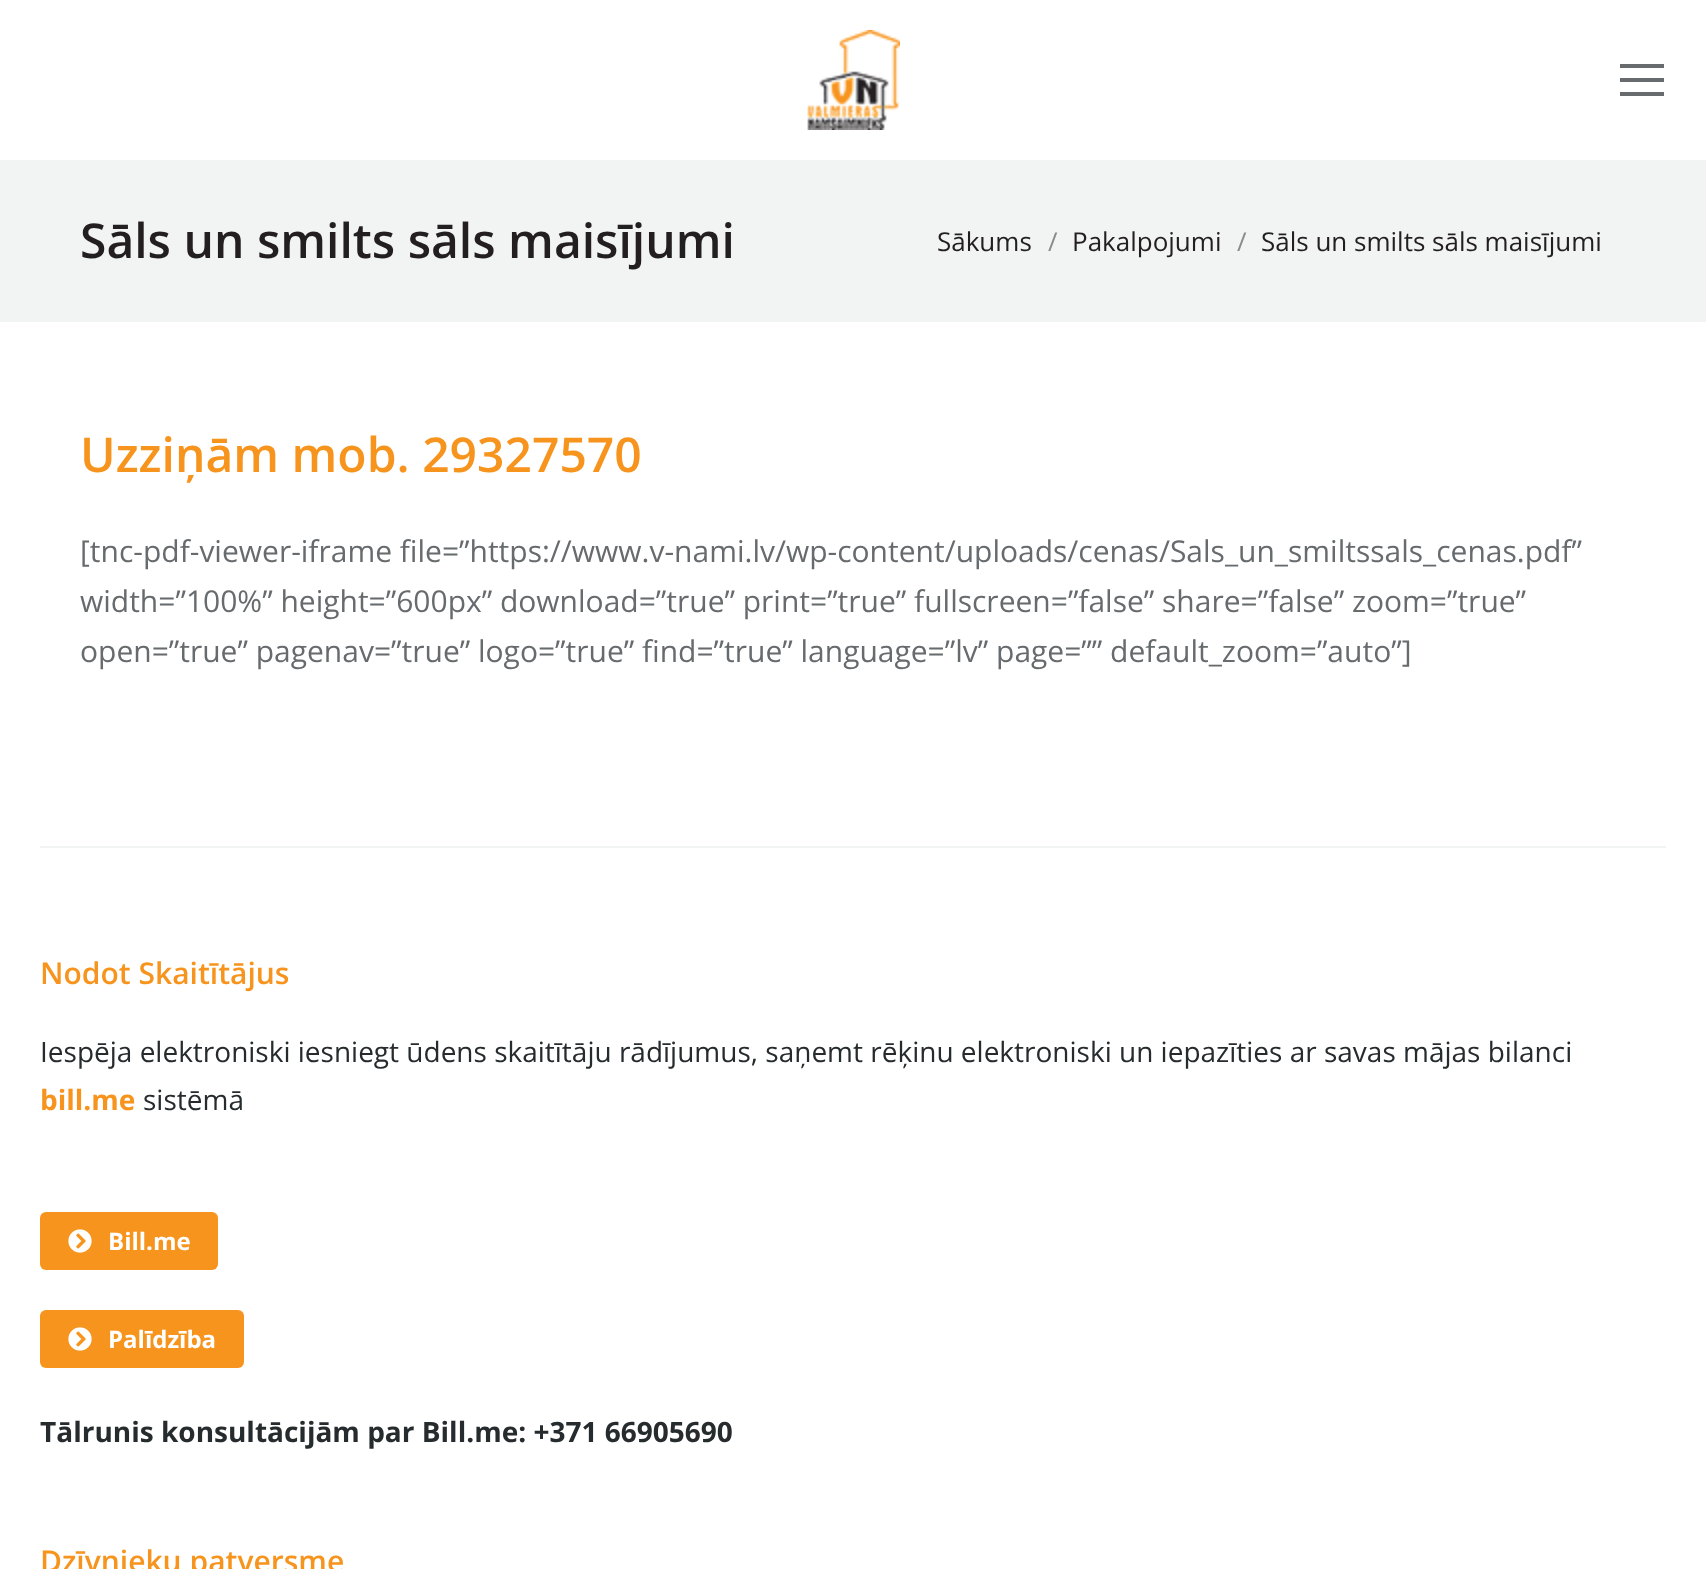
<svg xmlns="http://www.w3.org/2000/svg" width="1706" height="1569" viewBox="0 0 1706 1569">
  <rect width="100%" height="100%" fill="#ffffff"/>
  <image x="807" y="30" width="93" height="100" href="img1.png"/>
  <rect x="1620" y="64" width="44" height="4" fill="#676b6d"/>
  <rect x="1620" y="78" width="44" height="4" fill="#676b6d"/>
  <rect x="1620" y="92" width="44" height="4" fill="#676b6d"/>
  <rect x="0" y="160" width="1706" height="162" fill="#f2f3f3"/>
  <text x="80" y="258" font-family="Open Sans" font-size="48" font-weight="600" fill="#231f20">Sāls un smilts sāls maisījumi</text>
  <text x="937" y="251" font-family="Open Sans" font-size="26" fill="#231f20">Sākums</text>
  <text x="1048" y="251" font-family="Open Sans" font-size="26" fill="#8c8a8a">/</text>
  <text x="1072" y="251" font-family="Open Sans" font-size="26" fill="#231f20">Pakalpojumi</text>
  <text x="1237" y="251" font-family="Open Sans" font-size="26" fill="#8c8a8a">/</text>
  <text x="1261" y="251" font-family="Open Sans" font-size="26" fill="#231f20">Sāls un smilts sāls maisījumi</text>
  <text x="80" y="472" font-family="Open Sans" font-size="48" font-weight="600" fill="#f7941e">Uzziņām mob. 29327570</text>
  <text x="80" y="562" font-family="Open Sans" font-size="30" fill="#676b6d">[tnc-pdf-viewer-iframe file=”https://www.v-nami.lv/wp-content/uploads/cenas/Sals_un_smiltssals_cenas.pdf”</text>
  <text x="80" y="612" font-family="Open Sans" font-size="30" fill="#676b6d">width=”100%” height=”600px” download=”true” print=”true” fullscreen=”false” share=”false” zoom=”true”</text>
  <text x="80" y="662" font-family="Open Sans" font-size="30" fill="#676b6d">open=”true” pagenav=”true” logo=”true” find=”true” language=”lv” page=”” default_zoom=”auto”]</text>
  <rect x="40" y="846" width="1626" height="2" fill="#f2f3f3"/>
  <text x="40" y="984" font-family="Open Sans" font-size="30" font-weight="600" fill="#f7941e">Nodot Skaitītājus</text>
  <text x="40" y="1062" font-family="Open Sans" font-size="28" fill="#262b2e">Iespēja elektroniski iesniegt ūdens skaitītāju rādījumus, saņemt rēķinu elektroniski un iepazīties ar savas mājas bilanci</text>
  <text x="40" y="1110" font-family="Open Sans" font-size="28" font-weight="bold" fill="#f7941e">bill.me</text>
  <text x="143" y="1110" font-family="Open Sans" font-size="28" fill="#262b2e">sistēmā</text>
  <rect x="40" y="1212" width="178" height="58" rx="6" fill="#f7941e"/>
  <image x="68" y="1229" width="24" height="24" href="img2.png"/>
  <text x="108" y="1250" font-family="Open Sans" font-size="24" font-weight="bold" fill="#ffffff">Bill.me</text>
  <rect x="40" y="1310" width="204" height="58" rx="6" fill="#f7941e"/>
  <image x="68" y="1327" width="24" height="24" href="img2.png"/>
  <text x="108" y="1348" font-family="Open Sans" font-size="24" font-weight="bold" fill="#ffffff">Palīdzība</text>
  <text x="40" y="1442" font-family="Open Sans" font-size="28" font-weight="bold" fill="#262b2e">Tālrunis konsultācijām par Bill.me: +371 66905690</text>
  <text x="40" y="1572" font-family="Open Sans" font-size="30" font-weight="600" fill="#f7941e">Dzīvnieku patversme</text>
</svg>
